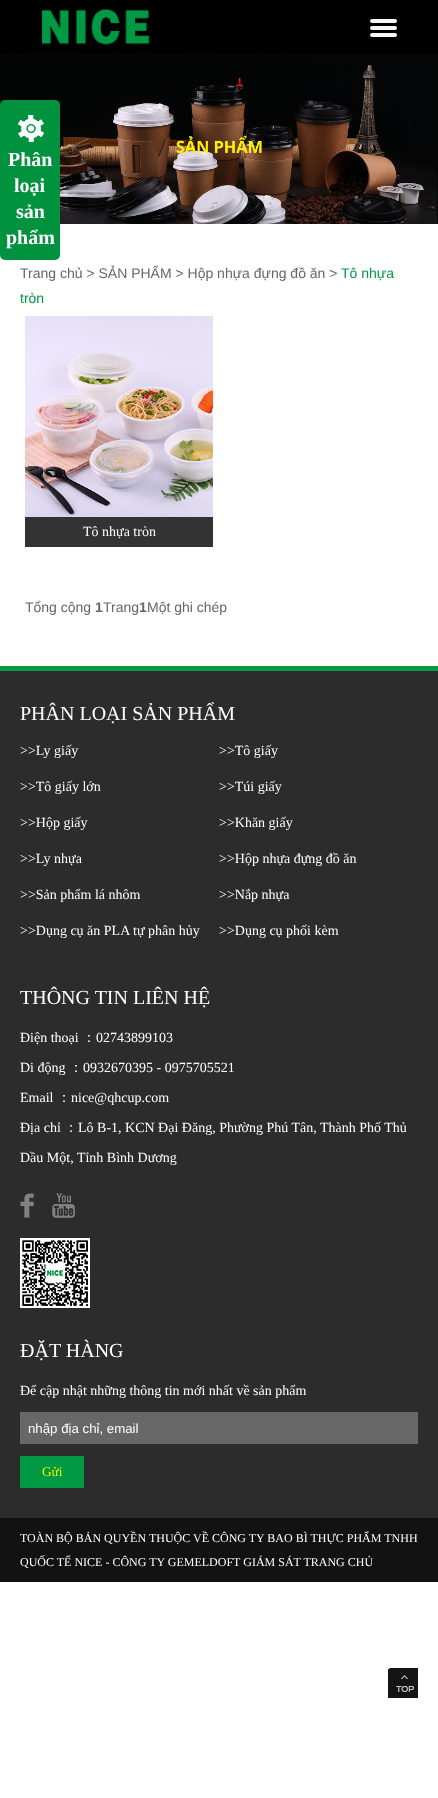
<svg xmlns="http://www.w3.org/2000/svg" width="438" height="1798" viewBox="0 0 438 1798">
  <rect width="100%" height="100%" fill="#ffffff"/>
  <rect x="0" y="0" width="438" height="54" fill="#000000"/>
  <image x="42" y="8" width="108" height="37" href="img1.png"/>
  <image x="370" y="19" width="27" height="18" href="img2.png"/>
  <image x="0" y="54" width="438" height="170" href="img3.png"/>
  <rect x="0" y="100" width="60" height="160" rx="5" fill="#00923f"/>
  <image x="18" y="115" width="26" height="27" href="img4.png"/>
  <text x="8" y="166" font-family="Liberation Serif" font-size="20" font-weight="bold" fill="#ffffff">Phân</text>
  <text x="14" y="192" font-family="Liberation Serif" font-size="20" font-weight="bold" fill="#ffffff">loại</text>
  <text x="16" y="218" font-family="Liberation Serif" font-size="20" font-weight="bold" fill="#ffffff">sản</text>
  <text x="6" y="244" font-family="Liberation Serif" font-size="20" font-weight="bold" fill="#ffffff">phẩm</text>
  <text x="20" y="278" font-family="Liberation Sans" font-size="14" fill="#666666">Trang chủ &gt; SẢN PHẨM &gt; Hộp nhựa đựng đồ ăn &gt;</text>
  <text x="341" y="278" font-family="Liberation Sans" font-size="14" fill="#009944">Tô nhựa</text>
  <text x="20" y="303" font-family="Liberation Sans" font-size="14" fill="#009944">tròn</text>
  <image x="25" y="316" width="188" height="201" href="img5.png"/>
  <rect x="25" y="517" width="188" height="30" fill="#333333"/>
  <text x="83" y="536" font-family="Liberation Serif" font-size="14" fill="#ffffff">Tô nhựa tròn</text>
  <text x="25" y="612" font-family="Liberation Sans" font-size="14" fill="#666666">Tổng cộng</text>
  <text x="95" y="612" font-family="Liberation Sans" font-size="14" font-weight="bold" fill="#666666">1</text>
  <text x="103" y="612" font-family="Liberation Sans" font-size="14" fill="#666666">Trang</text>
  <text x="139" y="612" font-family="Liberation Sans" font-size="14" font-weight="bold" fill="#666666">1</text>
  <text x="147" y="612" font-family="Liberation Sans" font-size="14" fill="#666666">Một ghi chép</text>
  <rect x="0" y="671" width="438" height="847" fill="#2c2c2c"/>
  <rect x="0" y="666" width="438" height="5" fill="#009944"/>
  <text x="20" y="720" font-family="Liberation Serif" font-size="20" fill="#ffffff">PHÂN LOẠI SẢN PHẨM</text>
  <text x="20" y="755" font-family="Liberation Serif" font-size="14" fill="#ffffff">&gt;&gt;Ly giấy</text>
  <text x="219" y="755" font-family="Liberation Serif" font-size="14" fill="#ffffff">&gt;&gt;Tô giấy</text>
  <text x="20" y="791" font-family="Liberation Serif" font-size="14" fill="#ffffff">&gt;&gt;Tô giấy lớn</text>
  <text x="219" y="791" font-family="Liberation Serif" font-size="14" fill="#ffffff">&gt;&gt;Túi giấy</text>
  <text x="20" y="827" font-family="Liberation Serif" font-size="14" fill="#ffffff">&gt;&gt;Hộp giấy</text>
  <text x="219" y="827" font-family="Liberation Serif" font-size="14" fill="#ffffff">&gt;&gt;Khăn giấy</text>
  <text x="20" y="863" font-family="Liberation Serif" font-size="14" fill="#ffffff">&gt;&gt;Ly nhựa</text>
  <text x="219" y="863" font-family="Liberation Serif" font-size="14" fill="#ffffff">&gt;&gt;Hộp nhựa đựng đồ ăn</text>
  <text x="20" y="899" font-family="Liberation Serif" font-size="14" fill="#ffffff">&gt;&gt;Sản phẩm lá nhôm</text>
  <text x="219" y="899" font-family="Liberation Serif" font-size="14" fill="#ffffff">&gt;&gt;Nắp nhựa</text>
  <text x="20" y="935" font-family="Liberation Serif" font-size="14" fill="#ffffff">&gt;&gt;Dụng cụ ăn PLA tự phân hủy</text>
  <text x="219" y="935" font-family="Liberation Serif" font-size="14" fill="#ffffff">&gt;&gt;Dụng cụ phối kèm</text>
  <text x="20" y="1004" font-family="Liberation Serif" font-size="20" fill="#ffffff">THÔNG TIN LIÊN HỆ</text>
  <text x="20" y="1042" font-family="Liberation Serif" font-size="14" fill="#ffffff">Điện thoại</text>
  <text x="82" y="1042" font-family="WenQuanYi Zen Hei" font-size="14" font-weight="500" fill="#ffffff">：</text>
  <text x="96" y="1042" font-family="Liberation Serif" font-size="14" fill="#ffffff">02743899103</text>
  <text x="20" y="1072" font-family="Liberation Serif" font-size="14" fill="#ffffff">Di động</text>
  <text x="69" y="1072" font-family="WenQuanYi Zen Hei" font-size="14" font-weight="500" fill="#ffffff">：</text>
  <text x="83" y="1072" font-family="Liberation Serif" font-size="14" fill="#ffffff">0932670395 - 0975705521</text>
  <text x="20" y="1102" font-family="Liberation Serif" font-size="14" fill="#ffffff">Email</text>
  <text x="57" y="1102" font-family="WenQuanYi Zen Hei" font-size="14" font-weight="500" fill="#ffffff">：</text>
  <text x="71" y="1102" font-family="Liberation Serif" font-size="14" fill="#ffffff">nice@qhcup.com</text>
  <text x="20" y="1132" font-family="Liberation Serif" font-size="14" fill="#ffffff">Địa chỉ</text>
  <text x="64" y="1132" font-family="WenQuanYi Zen Hei" font-size="14" font-weight="500" fill="#ffffff">：</text>
  <text x="78" y="1132" font-family="Liberation Serif" font-size="14" fill="#ffffff">Lô B-1, KCN Đại Đăng, Phường Phú Tân, Thành Phố Thủ</text>
  <text x="20" y="1162" font-family="Liberation Serif" font-size="14" fill="#ffffff">Dầu Một, Tỉnh Bình Dương</text>
  <image x="20" y="1193" width="14" height="25" href="img6.png"/>
  <image x="52" y="1193" width="23" height="25" href="img7.png"/>
  <image x="20" y="1238" width="70" height="70" href="img8.png"/>
  <text x="20" y="1357" font-family="Liberation Serif" font-size="20" fill="#ffffff">ĐẶT HÀNG</text>
  <text x="20" y="1395" font-family="Liberation Serif" font-size="14" fill="#ffffff">Để cập nhật những thông tin mới nhất về sản phẩm</text>
  <rect x="20" y="1412" width="398" height="32" fill="#676767"/>
  <text x="28" y="1433" font-family="Liberation Sans" font-size="13.25" fill="#ffffff">nhập địa chỉ, email</text>
  <rect x="20" y="1456" width="64" height="32" fill="#009944"/>
  <text x="42" y="1476" font-family="Liberation Serif" font-size="13.25" fill="#fff100">Gửi</text>
  <rect x="0" y="1518" width="438" height="64" fill="#121212"/>
  <text x="20" y="1542" font-family="Liberation Serif" font-size="12" fill="#ffffff">TOÀN BỘ BẢN QUYỀN THUỘC VỀ CÔNG TY BAO BÌ THỰC PHẨM TNHH</text>
  <text x="20" y="1566" font-family="Liberation Serif" font-size="12" fill="#ffffff">QUỐC TẾ NICE - CÔNG TY GEMELDOFT GIÁM SÁT TRANG CHỦ</text>
  <image x="388" y="1668" width="30" height="30" href="img9.png"/>
</svg>
